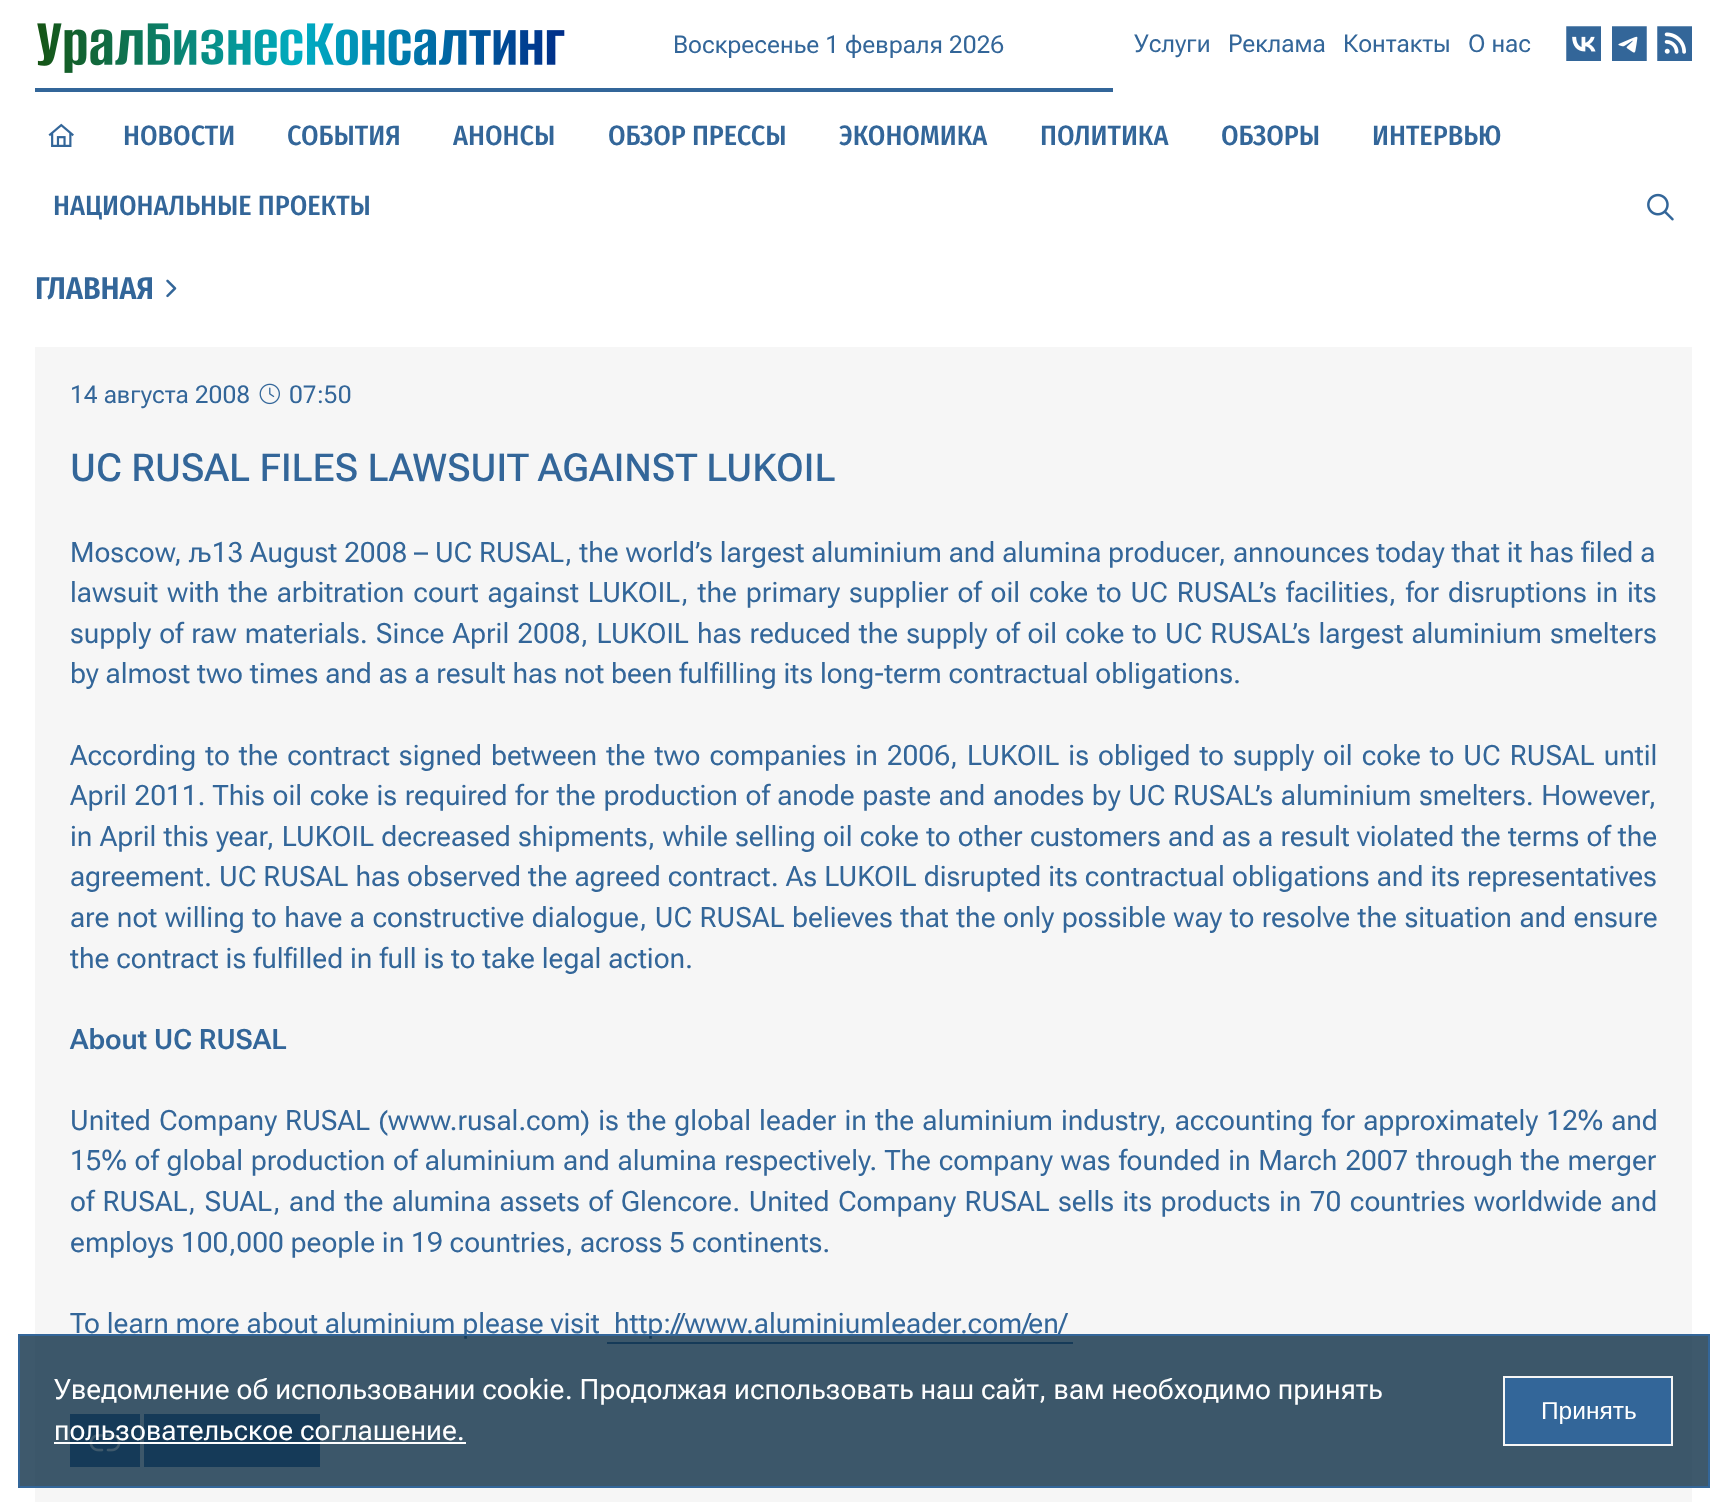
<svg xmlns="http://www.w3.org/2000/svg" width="1727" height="1504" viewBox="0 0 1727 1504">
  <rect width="100%" height="100%" fill="#ffffff"/>
  <image x="37" y="23" width="528" height="50" href="img1.png"/>
  <text x="673" y="53" font-family="Roboto Flex" font-size="24.5" fill="#336699">Воскресенье 1 февраля 2026</text>
  <text x="1134" y="52" font-family="Roboto Flex" font-size="24.5" fill="#336699">Услуги</text>
  <text x="1228" y="52" font-family="Roboto Flex" font-size="24.5" fill="#336699">Реклама</text>
  <text x="1343" y="52" font-family="Roboto Flex" font-size="24.5" fill="#336699">Контакты</text>
  <text x="1468" y="52" font-family="Roboto Flex" font-size="24.5" fill="#336699">О нас</text>
  <image x="1566" y="26" width="35" height="35" href="img2.png"/>
  <image x="1612" y="26" width="35" height="35" href="img3.png"/>
  <image x="1657" y="26" width="35" height="35" href="img4.png"/>
  <rect x="35" y="88" width="1078" height="4" fill="#336699"/>
  <image x="48" y="123" width="26" height="24" href="img5.png"/>
  <text x="123" y="145" font-family="Fira Sans Condensed" font-size="28" font-weight="500" fill="#336699">НОВОСТИ</text>
  <text x="287" y="145" font-family="Fira Sans Condensed" font-size="28" font-weight="500" fill="#336699">СОБЫТИЯ</text>
  <text x="453" y="145" font-family="Fira Sans Condensed" font-size="28" font-weight="500" fill="#336699">АНОНСЫ</text>
  <text x="608" y="145" font-family="Fira Sans Condensed" font-size="28" font-weight="500" fill="#336699">ОБЗОР ПРЕССЫ</text>
  <text x="839" y="145" font-family="Fira Sans Condensed" font-size="28" font-weight="500" fill="#336699">ЭКОНОМИКА</text>
  <text x="1040" y="145" font-family="Fira Sans Condensed" font-size="28" font-weight="500" fill="#336699">ПОЛИТИКА</text>
  <text x="1221" y="145" font-family="Fira Sans Condensed" font-size="28" font-weight="500" fill="#336699">ОБЗОРЫ</text>
  <text x="1372" y="145" font-family="Fira Sans Condensed" font-size="28" font-weight="500" fill="#336699">ИНТЕРВЬЮ</text>
  <text x="53" y="215" font-family="Fira Sans Condensed" font-size="28" font-weight="500" fill="#336699">НАЦИОНАЛЬНЫЕ ПРОЕКТЫ</text>
  <image x="1647" y="193" width="27" height="28" href="img6.png"/>
  <text x="35" y="299" font-family="Fira Sans Condensed" font-size="31.5" font-weight="600" fill="#336699">ГЛАВНАЯ</text>
  <image x="166" y="279" width="11" height="19" href="img7.png"/>
  <rect x="35" y="347" width="1657" height="1155" fill="#f6f6f6"/>
  <text x="70" y="403" font-family="Roboto Flex" font-size="24.5" fill="#336699">14 августа 2008</text>
  <image x="259" y="383" width="21" height="22" href="img8.png"/>
  <text x="289" y="403" font-family="Roboto Flex" font-size="24.5" fill="#336699">07:50</text>
  <text x="70" y="481" font-family="Roboto Flex" font-size="38.5" font-weight="500" fill="#336699">UC RUSAL FILES LAWSUIT AGAINST LUKOIL</text>
  <text x="70" y="562" font-family="Roboto Flex" font-size="28" fill="#336699">Moscow, љ13 August 2008 – UC RUSAL, the world’s largest aluminium and alumina producer, announces today that it has filed a</text>
  <text x="70" y="602" word-spacing="2.1" font-family="Roboto Flex" font-size="28" fill="#336699">lawsuit with the arbitration court against LUKOIL, the primary supplier of oil coke to UC RUSAL’s facilities, for disruptions in its</text>
  <text x="70" y="643" word-spacing="1.25" font-family="Roboto Flex" font-size="28" fill="#336699">supply of raw materials. Since April 2008, LUKOIL has reduced the supply of oil coke to UC RUSAL’s largest aluminium smelters</text>
  <text x="70" y="683" font-family="Roboto Flex" font-size="28" fill="#336699">by almost two times and as a result has not been fulfilling its long-term contractual obligations.</text>
  <text x="70" y="765" word-spacing="2.2" font-family="Roboto Flex" font-size="28" fill="#336699">According to the contract signed between the two companies in 2006, LUKOIL is obliged to supply oil coke to UC RUSAL until</text>
  <text x="70" y="805" word-spacing="0.8" font-family="Roboto Flex" font-size="28" fill="#336699">April 2011. This oil coke is required for the production of anode paste and anodes by UC RUSAL’s aluminium smelters. However,</text>
  <text x="70" y="846" word-spacing="0.4" font-family="Roboto Flex" font-size="28" fill="#336699">in April this year, LUKOIL decreased shipments, while selling oil coke to other customers and as a result violated the terms of the</text>
  <text x="70" y="886" word-spacing="0.25" font-family="Roboto Flex" font-size="28" fill="#336699">agreement. UC RUSAL has observed the agreed contract. As LUKOIL disrupted its contractual obligations and its representatives</text>
  <text x="70" y="927" word-spacing="0.7" font-family="Roboto Flex" font-size="28" fill="#336699">are not willing to have a constructive dialogue, UC RUSAL believes that the only possible way to resolve the situation and ensure</text>
  <text x="70" y="968" font-family="Roboto Flex" font-size="28" fill="#336699">the contract is fulfilled in full is to take legal action.</text>
  <text x="70" y="1049" font-family="Roboto Flex" font-size="28" font-weight="600" fill="#336699">About UC RUSAL</text>
  <text x="70" y="1130" word-spacing="1.25" font-family="Roboto Flex" font-size="28" fill="#336699">United Company RUSAL (www.rusal.com) is the global leader in the aluminium industry, accounting for approximately 12% and</text>
  <text x="70" y="1170" word-spacing="0.9" font-family="Roboto Flex" font-size="28" fill="#336699">15% of global production of aluminium and alumina respectively. The company was founded in March 2007 through the merger</text>
  <text x="70" y="1211" word-spacing="1.6" font-family="Roboto Flex" font-size="28" fill="#336699">of RUSAL, SUAL, and the alumina assets of Glencore. United Company RUSAL sells its products in 70 countries worldwide and</text>
  <text x="70" y="1252" font-family="Roboto Flex" font-size="28" fill="#336699">employs 100,000 people in 19 countries, across 5 continents.</text>
  <text x="70" y="1333" font-family="Roboto Flex" font-size="28" fill="#336699">To learn more about aluminium please visit</text>
  <rect x="607" y="1342" width="466" height="2" fill="#336699"/>
  <text x="614" y="1333" font-family="Roboto Flex" font-size="28" fill="#336699">http://www.aluminiumleader.com/en/</text>
  <rect x="70" y="1414" width="70" height="53" fill="#336699"/>
  <image x="89" y="1434" width="32" height="18" href="img9.png"/>
  <rect x="144" y="1414" width="176" height="53" fill="#336699"/>
  <rect x="19" y="1335" width="1690" height="152" fill="#0e3047" fill-opacity="0.8" stroke="#336699" stroke-width="2"/>
  <text x="54" y="1399" font-family="Roboto Flex" font-size="28" fill="#ffffff">Уведомление об использовании cookie. Продолжая использовать наш сайт, вам необходимо принять</text>
  <text x="54" y="1440" font-family="Roboto Flex" font-size="28" fill="#ffffff">пользовательское соглашение.</text>
  <rect x="54" y="1442" width="412" height="2" fill="#ffffff"/>
  <rect x="1504" y="1377" width="168" height="68" fill="#336699" stroke="#f6f6f6" stroke-width="2"/>
  <text x="1541" y="1419" font-family="Liberation Sans" font-size="24.5" fill="#ffffff">Принять</text>
</svg>
